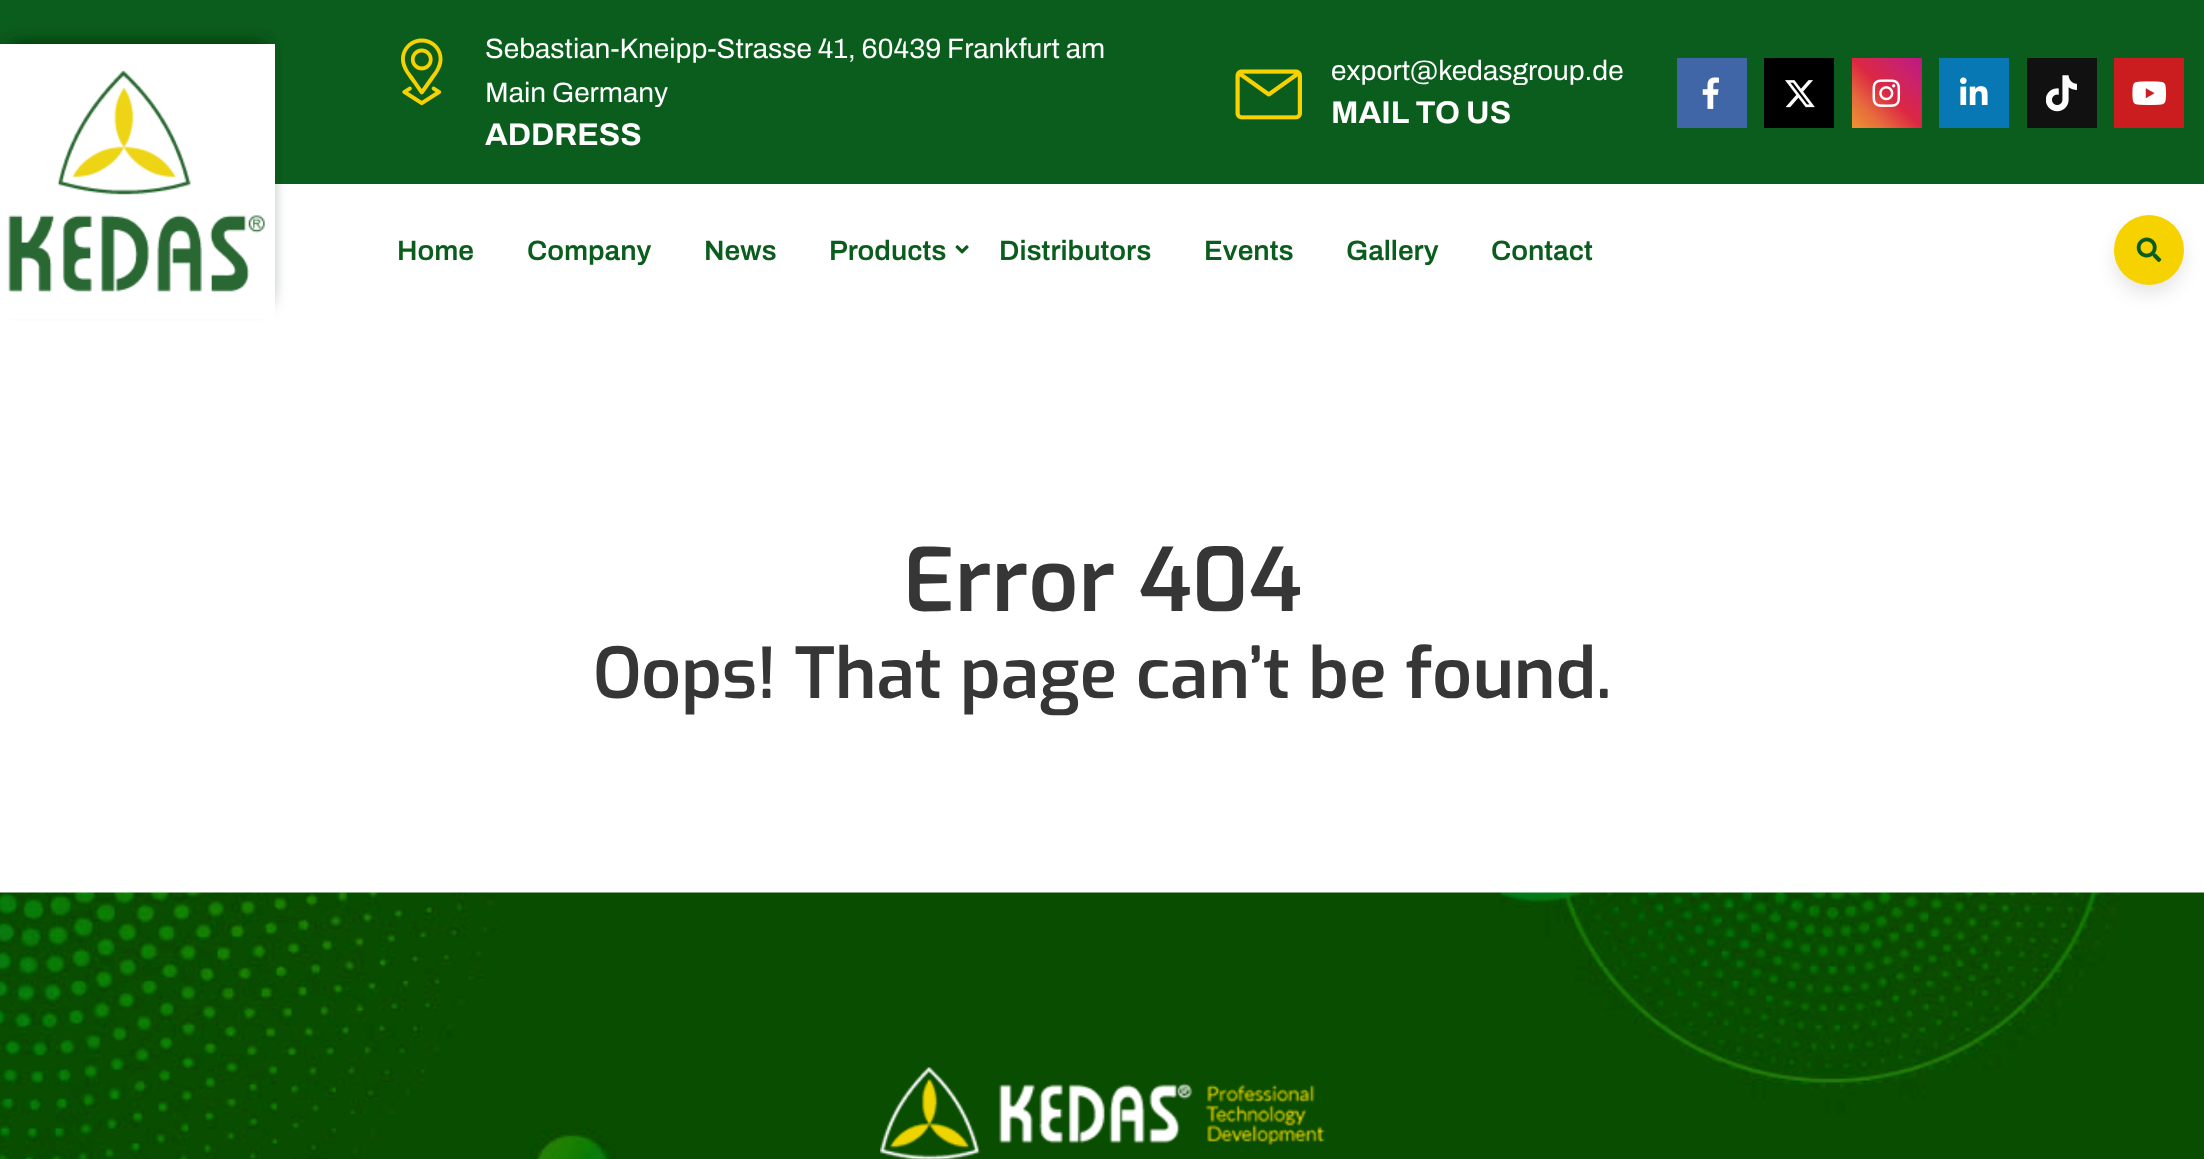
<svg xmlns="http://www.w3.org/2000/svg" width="2204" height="1159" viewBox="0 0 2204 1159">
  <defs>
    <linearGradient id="g1" gradientUnits="userSpaceOnUse" x1="1852" y1="128" x2="1922" y2="58"><stop offset="0" stop-color="#f09433"/><stop offset="0.25" stop-color="#e6683c"/><stop offset="0.5" stop-color="#dc2743"/><stop offset="0.75" stop-color="#cc2366"/><stop offset="1" stop-color="#bc1888"/></linearGradient>
    <filter id="blur1" x="-50%" y="-200%" width="200%" height="500%"><feGaussianBlur stdDeviation="9"/></filter>
  </defs>
  <rect width="100%" height="100%" fill="#ffffff"/>
  <rect x="0" y="0" width="2204" height="184" fill="#0b5d1d"/>
  <image x="401" y="38" width="42" height="68" href="img1.png"/>
  <text x="485" y="58" font-family="Archivo" font-size="28" fill="#ffffff">Sebastian-Kneipp-Strasse 41, 60439 Frankfurt am</text>
  <text x="485" y="102" font-family="Archivo" font-size="28" fill="#ffffff">Main Germany</text>
  <text x="485" y="145" font-family="Archivo" font-size="31.5" font-weight="bold" fill="#ffffff">ADDRESS</text>
  <image x="1235" y="69" width="67" height="51" href="img2.png"/>
  <text x="1331" y="80" font-family="Archivo" font-size="28" fill="#ffffff">export@kedasgroup.de</text>
  <text x="1331" y="123" font-family="Archivo" font-size="31.5" font-weight="bold" fill="#ffffff">MAIL TO US</text>
  <rect x="1677" y="58" width="70" height="70" fill="#4066a8"/>
  <image x="1702" y="77" width="17" height="32" href="img3.png"/>
  <rect x="1764" y="58" width="70" height="70" fill="#000000"/>
  <image x="1785" y="80" width="30" height="28" href="img4.png"/>
  <rect x="1852" y="58" width="70" height="70" fill="url(#g1)"/>
  <image x="1872" y="79" width="29" height="28" href="img5.png"/>
  <rect x="1939" y="58" width="70" height="70" fill="#0778b3"/>
  <image x="1960" y="77" width="28" height="28" href="img6.png"/>
  <rect x="2027" y="58" width="70" height="70" fill="#111111"/>
  <image x="2046" y="75" width="31" height="37" href="img7.png"/>
  <rect x="2114" y="58" width="70" height="70" fill="#cb1c1f"/>
  <image x="2132" y="81" width="34" height="24" href="img8.png"/>
  <rect x="9" y="44" width="257" height="257" fill="#042b0c" filter="url(#blur1)"/>
  <rect x="0" y="44" width="275" height="275" fill="#ffffff"/>
  <image x="8" y="70" width="257" height="222" href="img9.png"/>
  <text x="397" y="260" font-family="Archivo" font-size="28" font-weight="600" fill="#0b5d1d">Home</text>
  <text x="527" y="260" font-family="Archivo" font-size="28" font-weight="600" fill="#0b5d1d">Company</text>
  <text x="704" y="260" font-family="Archivo" font-size="28" font-weight="600" fill="#0b5d1d">News</text>
  <text x="829" y="260" font-family="Archivo" font-size="28" font-weight="600" fill="#0b5d1d">Products</text>
  <image x="955" y="245" width="14" height="9" href="img10.png"/>
  <text x="999" y="260" font-family="Archivo" font-size="28" font-weight="600" fill="#0b5d1d">Distributors</text>
  <text x="1204" y="260" font-family="Archivo" font-size="28" font-weight="600" fill="#0b5d1d">Events</text>
  <text x="1346" y="260" font-family="Archivo" font-size="28" font-weight="600" fill="#0b5d1d">Gallery</text>
  <text x="1491" y="260" font-family="Archivo" font-size="28" font-weight="600" fill="#0b5d1d">Contact</text>
  <rect x="2114" y="224" width="70" height="70" rx="35" fill="#000000" fill-opacity="0.1" filter="url(#blur1)"/>
  <circle cx="2149" cy="250" r="35" fill="#f5d200"/>
  <image x="2136" y="237" width="26" height="25" href="img11.png"/>
  <text x="903" y="611" font-family="Exo" font-size="87.5" font-weight="600" fill="#363636">Error 404</text>
  <text x="593" y="698" font-family="Exo" font-size="70" font-weight="600" fill="#363636">Oops! That page can’t be found.</text>
  <image x="0" y="892" width="2204" height="267" href="img12.png"/>
  <image x="880" y="1067" width="445" height="92" href="img13.png"/>
</svg>
